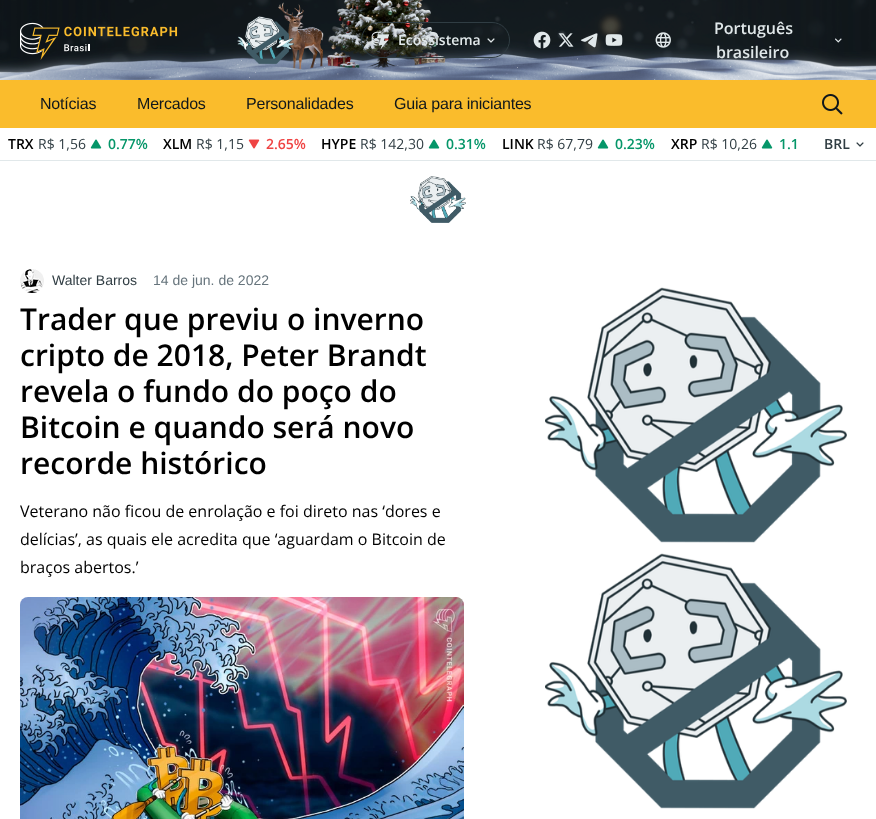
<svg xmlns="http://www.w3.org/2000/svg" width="876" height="819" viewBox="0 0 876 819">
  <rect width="100%" height="100%" fill="#ffffff"/>
  <rect x="0" y="0" width="876" height="73" fill="#10171b"/>
  <image x="0" y="0" width="876" height="80" href="img1.png"/>
  <image x="20" y="22" width="158" height="38" href="img2.png"/>
  <image x="237" y="16" width="57" height="48" href="img3.png"/>
  <rect x="361.5" y="22.5" width="148" height="35" rx="17.5" fill="none" stroke="#303d43"/>
  <image x="371" y="31" width="19" height="19" href="img4.png"/>
  <text x="398" y="45" font-family="Open Sans" font-size="14" font-weight="600" fill="#e1e8ea">Ecossistema</text>
  <image x="487" y="38" width="8" height="5" href="img5.png"/>
  <image x="533" y="31" width="18" height="18" href="img6.png"/>
  <image x="558" y="33" width="16" height="14" href="img7.png"/>
  <image x="580" y="33" width="18" height="15" href="img8.png"/>
  <image x="605" y="34" width="18" height="12" href="img9.png"/>
  <image x="655" y="32" width="16" height="16" href="img10.png"/>
  <text x="714" y="34" font-family="Open Sans" font-size="16" font-weight="600" fill="#e1e8ea">Português</text>
  <text x="716" y="58" font-family="Open Sans" font-size="16" font-weight="600" fill="#e1e8ea">brasileiro</text>
  <image x="835" y="38" width="7" height="5" href="img11.png"/>
  <rect x="0" y="80" width="876" height="48" fill="#fabc2c"/>
  <text x="40" y="109" font-family="Liberation Sans" font-size="16" letter-spacing="-0.2" fill="#10171b">Notícias</text>
  <text x="137" y="109" font-family="Liberation Sans" font-size="16" letter-spacing="-0.2" fill="#10171b">Mercados</text>
  <text x="246" y="109" font-family="Liberation Sans" font-size="16" letter-spacing="-0.2" fill="#10171b">Personalidades</text>
  <text x="394" y="109" font-family="Liberation Sans" font-size="16" letter-spacing="-0.2" fill="#10171b">Guia para iniciantes</text>
  <image x="822" y="94" width="21" height="21" href="img12.png"/>
  <rect x="0" y="160" width="876" height="1" fill="#e1e8ea"/>
  <text x="8" y="149" font-family="Open Sans" font-size="14" font-weight="600" fill="#000000">TRX</text>
  <text x="38" y="149" font-family="Open Sans" font-size="14" fill="#303d43">R$ 1,56</text>
  <image x="90" y="139" width="12" height="10" href="img13.png"/>
  <text x="108" y="149" font-family="Open Sans" font-size="14" font-weight="600" fill="#059669">0.77%</text>
  <text x="163" y="149" font-family="Open Sans" font-size="14" font-weight="600" fill="#000000">XLM</text>
  <text x="196" y="149" font-family="Open Sans" font-size="14" fill="#303d43">R$ 1,15</text>
  <image x="248" y="139" width="12" height="10" href="img14.png"/>
  <text x="266" y="149" font-family="Open Sans" font-size="14" font-weight="600" fill="#ef4444">2.65%</text>
  <text x="321" y="149" font-family="Open Sans" font-size="14" font-weight="600" fill="#000000">HYPE</text>
  <text x="360" y="149" font-family="Open Sans" font-size="14" fill="#303d43">R$ 142,30</text>
  <image x="428" y="139" width="12" height="10" href="img13.png"/>
  <text x="446" y="149" font-family="Open Sans" font-size="14" font-weight="600" fill="#059669">0.31%</text>
  <text x="502" y="149" font-family="Open Sans" font-size="14" font-weight="600" fill="#000000">LINK</text>
  <text x="537" y="149" font-family="Open Sans" font-size="14" fill="#303d43">R$ 67,79</text>
  <image x="597" y="139" width="12" height="10" href="img13.png"/>
  <text x="615" y="149" font-family="Open Sans" font-size="14" font-weight="600" fill="#059669">0.23%</text>
  <text x="671" y="149" font-family="Open Sans" font-size="14" font-weight="600" fill="#000000">XRP</text>
  <text x="701" y="149" font-family="Open Sans" font-size="14" fill="#303d43">R$ 10,26</text>
  <image x="761" y="139" width="12" height="10" href="img13.png"/>
  <text x="779" y="149" font-family="Open Sans" font-size="14" font-weight="600" fill="#059669">1.1</text>
  <text x="824" y="149" font-family="Open Sans" font-size="14" font-weight="600" fill="#303d43">BRL</text>
  <image x="856" y="142" width="8" height="5" href="img15.png"/>
  <image x="410" y="176" width="56" height="47" href="img16.png"/>
  <image x="20" y="269" width="24" height="24" href="img17.png"/>
  <text x="52" y="285" font-family="Liberation Sans" font-size="14" fill="#303d43">Walter Barros</text>
  <text x="153" y="285" font-family="Liberation Sans" font-size="14" fill="#66747c">14 de jun. de 2022</text>
  <text x="20" y="330" font-family="Open Sans" font-size="30" font-weight="600" fill="#000000">Trader que previu o inverno</text>
  <text x="20" y="366" font-family="Open Sans" font-size="30" font-weight="600" fill="#000000">cripto de 2018, Peter Brandt</text>
  <text x="20" y="402" font-family="Open Sans" font-size="30" font-weight="600" fill="#000000">revela o fundo do poço do</text>
  <text x="20" y="438" font-family="Open Sans" font-size="30" font-weight="600" fill="#000000">Bitcoin e quando será novo</text>
  <text x="20" y="474" font-family="Open Sans" font-size="30" font-weight="600" fill="#000000">recorde histórico</text>
  <text x="20" y="517" font-family="Open Sans" font-size="16" fill="#000000">Veterano não ficou de enrolação e foi direto nas ‘dores e</text>
  <text x="20" y="545" font-family="Open Sans" font-size="16" fill="#000000">delícias’, as quais ele acredita que ‘aguardam o Bitcoin de</text>
  <text x="20" y="573" font-family="Open Sans" font-size="16" fill="#000000">braços abertos.’</text>
  <image x="20" y="597" width="444" height="222" href="img18.png"/>
  <image x="545" y="287" width="302" height="256" href="img19.png"/>
  <image x="545" y="553" width="302" height="256" href="img19.png"/>
</svg>
